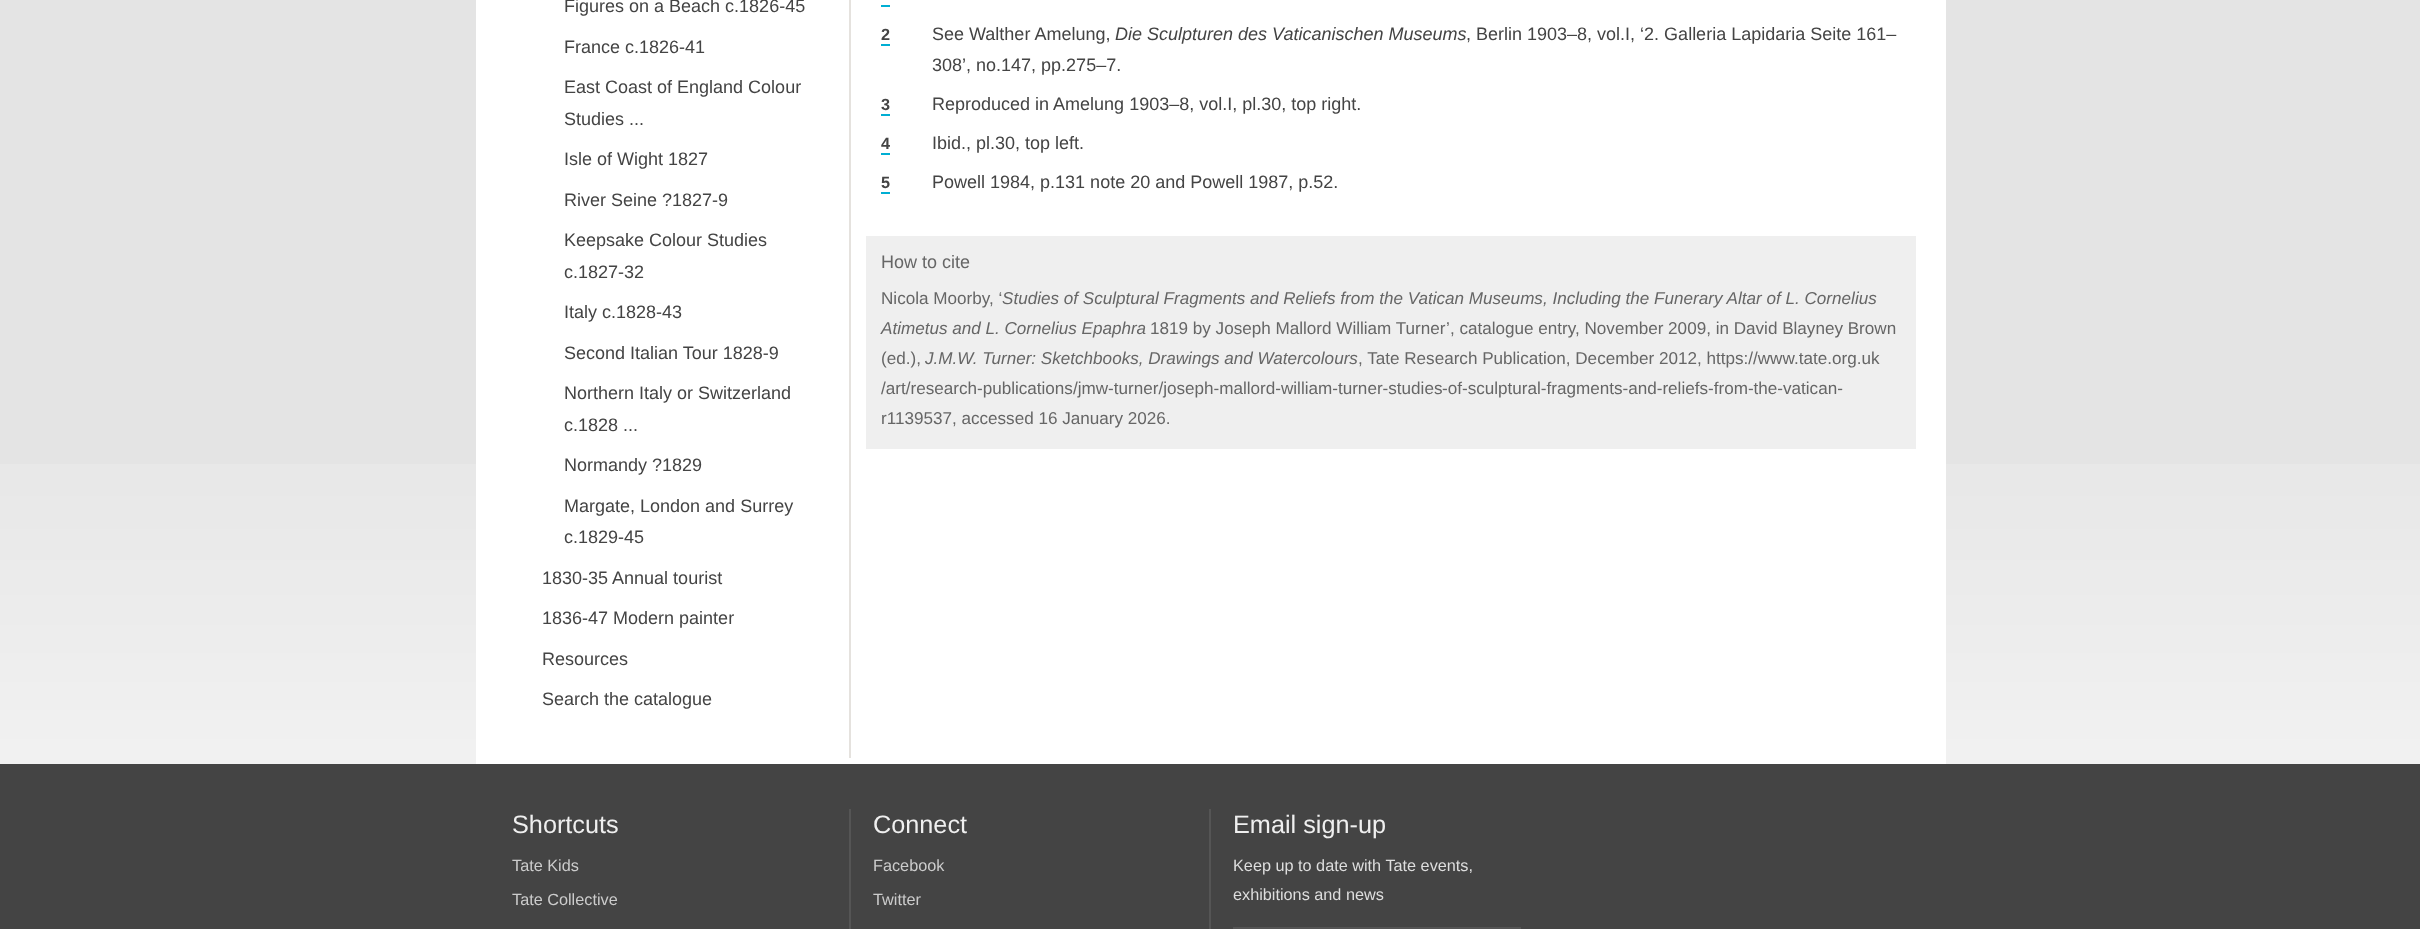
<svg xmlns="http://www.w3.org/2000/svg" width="2420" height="929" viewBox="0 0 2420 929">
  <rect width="100%" height="100%" fill="#e4e4e4"/>
  <image x="0" y="464" width="2420" height="300" href="img1.png"/>
  <rect x="476" y="0" width="1470" height="764" fill="#ffffff"/>
  <rect x="849" y="0" width="2" height="758" fill="#e5e2de"/>
  <text x="564" y="12" font-family="Liberation Sans" font-size="18" fill="#444444">Figures on a Beach c.1826-45</text>
  <text x="564" y="53" font-family="Liberation Sans" font-size="18" fill="#444444">France c.1826-41</text>
  <text x="564" y="93" font-family="Liberation Sans" font-size="18" fill="#444444">East Coast of England Colour</text>
  <text x="564" y="125" font-family="Liberation Sans" font-size="18" fill="#444444">Studies ...</text>
  <text x="564" y="165" font-family="Liberation Sans" font-size="18" fill="#444444">Isle of Wight 1827</text>
  <text x="564" y="206" font-family="Liberation Sans" font-size="18" fill="#444444">River Seine ?1827-9</text>
  <text x="564" y="246" font-family="Liberation Sans" font-size="18" fill="#444444">Keepsake Colour Studies</text>
  <text x="564" y="278" font-family="Liberation Sans" font-size="18" fill="#444444">c.1827-32</text>
  <text x="564" y="318" font-family="Liberation Sans" font-size="18" fill="#444444">Italy c.1828-43</text>
  <text x="564" y="359" font-family="Liberation Sans" font-size="18" fill="#444444">Second Italian Tour 1828-9</text>
  <text x="564" y="399" font-family="Liberation Sans" font-size="18" fill="#444444">Northern Italy or Switzerland</text>
  <text x="564" y="431" font-family="Liberation Sans" font-size="18" fill="#444444">c.1828 ...</text>
  <text x="564" y="471" font-family="Liberation Sans" font-size="18" fill="#444444">Normandy ?1829</text>
  <text x="564" y="512" font-family="Liberation Sans" font-size="18" fill="#444444">Margate, London and Surrey</text>
  <text x="564" y="543" font-family="Liberation Sans" font-size="18" fill="#444444">c.1829-45</text>
  <text x="542" y="584" font-family="Liberation Sans" font-size="18" fill="#444444">1830-35 Annual tourist</text>
  <text x="542" y="624" font-family="Liberation Sans" font-size="18" fill="#444444">1836-47 Modern painter</text>
  <text x="542" y="665" font-family="Liberation Sans" font-size="18" fill="#444444">Resources</text>
  <text x="542" y="705" font-family="Liberation Sans" font-size="18" fill="#444444">Search the catalogue</text>
  <rect x="881" y="5" width="9" height="2" fill="#00aed3"/>
  <text x="881" y="40" font-family="Liberation Sans" font-size="16.25" font-weight="bold" fill="#444444">2</text>
  <rect x="881" y="44" width="9" height="2" fill="#00aed3"/>
  <text x="932" y="40" font-family="Liberation Sans" font-size="18" fill="#444444">See Walther Amelung,</text>
  <text x="1115" y="40" font-family="Liberation Sans" font-size="18" font-style="italic" fill="#444444">Die Sculpturen des Vaticanischen Museums</text>
  <text x="1466" y="40" font-family="Liberation Sans" font-size="18" fill="#444444">, Berlin 1903–8, vol.I, ‘2. Galleria Lapidaria Seite 161–</text>
  <text x="932" y="71" font-family="Liberation Sans" font-size="18" fill="#444444">308’, no.147, pp.275–7.</text>
  <text x="881" y="110" font-family="Liberation Sans" font-size="16.25" font-weight="bold" fill="#444444">3</text>
  <rect x="881" y="114" width="9" height="2" fill="#00aed3"/>
  <text x="932" y="110" font-family="Liberation Sans" font-size="18" fill="#444444">Reproduced in Amelung 1903–8, vol.I, pl.30, top right.</text>
  <text x="881" y="149" font-family="Liberation Sans" font-size="16.25" font-weight="bold" fill="#444444">4</text>
  <rect x="881" y="153" width="9" height="2" fill="#00aed3"/>
  <text x="932" y="149" font-family="Liberation Sans" font-size="18" fill="#444444">Ibid., pl.30, top left.</text>
  <text x="881" y="188" font-family="Liberation Sans" font-size="16.25" font-weight="bold" fill="#444444">5</text>
  <rect x="881" y="192" width="9" height="2" fill="#00aed3"/>
  <text x="932" y="188" font-family="Liberation Sans" font-size="18" fill="#444444">Powell 1984, p.131 note 20 and Powell 1987, p.52.</text>
  <rect x="866" y="236" width="1050" height="213" fill="#efefef"/>
  <text x="881" y="268" font-family="Liberation Sans" font-size="18" fill="#666666">How to cite</text>
  <text x="881" y="304" font-family="Liberation Sans" font-size="17.1" fill="#666666">Nicola Moorby, ‘</text>
  <text x="1002" y="304" font-family="Liberation Sans" font-size="17.1" font-style="italic" fill="#666666">Studies of Sculptural Fragments and Reliefs from the Vatican Museums, Including the Funerary Altar of L. Cornelius</text>
  <text x="881" y="334" font-family="Liberation Sans" font-size="17.1" font-style="italic" fill="#666666">Atimetus and L. Cornelius Epaphra</text>
  <text x="1150" y="334" font-family="Liberation Sans" font-size="17.1" fill="#666666">1819 by Joseph Mallord William Turner’, catalogue entry, November 2009, in David Blayney Brown</text>
  <text x="881" y="364" font-family="Liberation Sans" font-size="17.1" fill="#666666">(ed.),</text>
  <text x="925" y="364" font-family="Liberation Sans" font-size="17.1" font-style="italic" fill="#666666">J.M.W. Turner: Sketchbooks, Drawings and Watercolours</text>
  <text x="1358" y="364" font-family="Liberation Sans" font-size="17.1" fill="#666666">, Tate Research Publication, December 2012, https://www</text>
  <text x="1794" y="364" font-family="Liberation Sans" font-size="17.1" fill="#666666">.tate.org.uk</text>
  <text x="881" y="394" font-family="Liberation Sans" font-size="17.1" fill="#666666">/art/research-publications/jmw-turner/joseph-mallord-william-turner-studies</text>
  <text x="1442" y="394" font-family="Liberation Sans" font-size="17.1" fill="#666666">-of-sculptural-fragments-and-reliefs-from-the-vatican-</text>
  <text x="881" y="424" font-family="Liberation Sans" font-size="17.1" fill="#666666">r1139537, accessed 16 January 2026.</text>
  <rect x="0" y="764" width="2420" height="165" fill="#444444"/>
  <text x="512" y="833" font-family="Liberation Sans" font-size="25.25" fill="#efefef">Shortcuts</text>
  <text x="512" y="871" font-family="Liberation Sans" font-size="16.25" fill="#cccccc">Tate Kids</text>
  <text x="512" y="905" font-family="Liberation Sans" font-size="16.25" fill="#cccccc">Tate Collective</text>
  <rect x="849" y="809" width="2" height="120" fill="#555555"/>
  <text x="873" y="833" font-family="Liberation Sans" font-size="25.25" fill="#efefef">Connect</text>
  <text x="873" y="871" font-family="Liberation Sans" font-size="16.25" fill="#cccccc">Facebook</text>
  <text x="873" y="905" font-family="Liberation Sans" font-size="16.25" fill="#cccccc">Twitter</text>
  <rect x="1209" y="809" width="2" height="120" fill="#555555"/>
  <text x="1233" y="833" font-family="Liberation Sans" font-size="25.25" fill="#efefef">Email sign-up</text>
  <text x="1233" y="871" font-family="Liberation Sans" font-size="16.25" fill="#dedede">Keep up to date with Tate events,</text>
  <text x="1233" y="900" font-family="Liberation Sans" font-size="16.25" fill="#dedede">exhibitions and news</text>
  <rect x="1234" y="928" width="286" height="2" fill="none" stroke="#555555" stroke-width="2"/>
</svg>
